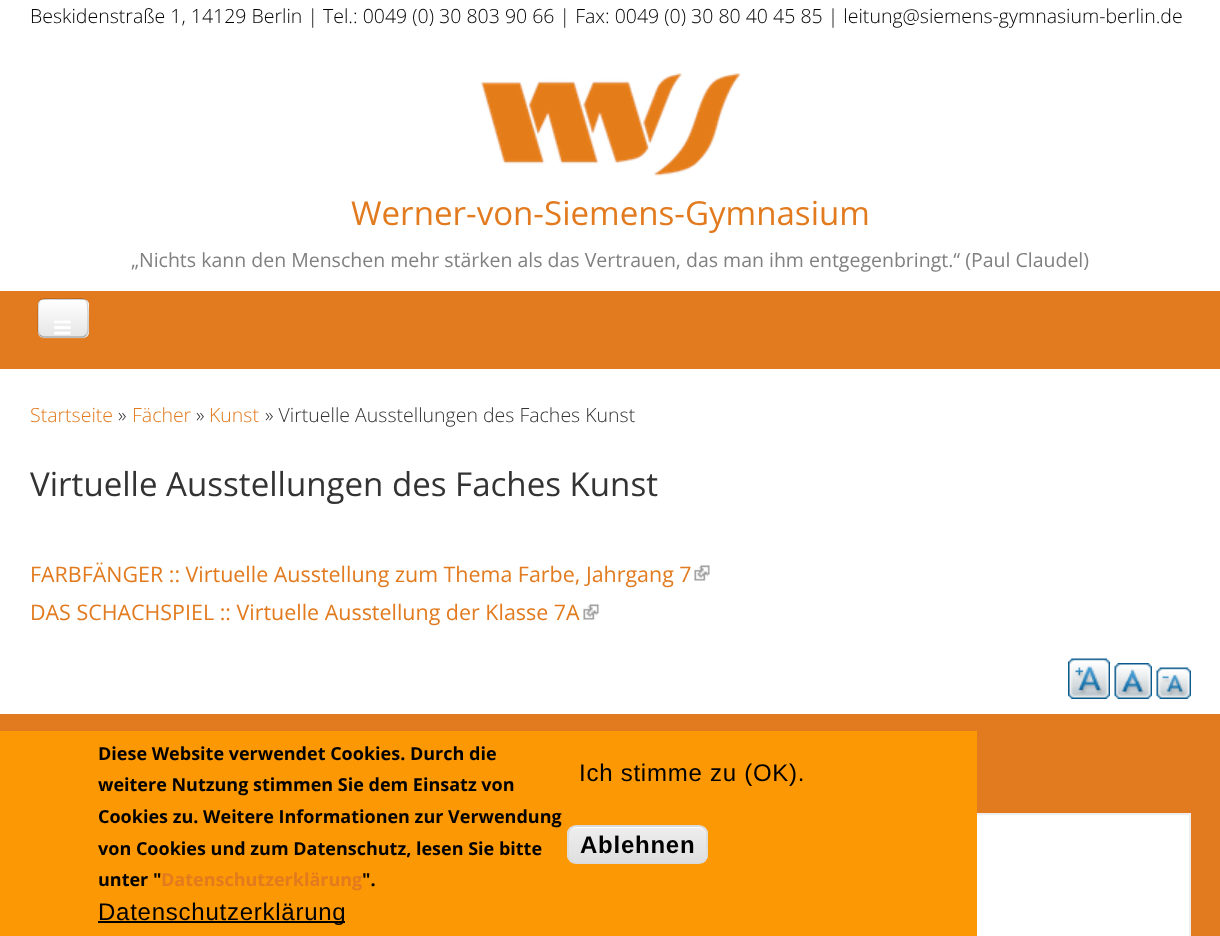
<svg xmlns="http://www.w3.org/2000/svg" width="1220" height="936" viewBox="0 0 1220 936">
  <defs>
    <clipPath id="clip1"><rect x="38" y="299" width="51" height="39" rx="6"/></clipPath>
    <linearGradient id="g1" gradientUnits="userSpaceOnUse" x1="63" y1="300" x2="63" y2="336"><stop offset="0" stop-color="#ffffff"/><stop offset="1" stop-color="#e6e6e6"/></linearGradient>
    <clipPath id="clip2"><rect x="567" y="825" width="141" height="39" rx="9"/></clipPath>
    <linearGradient id="g2" gradientUnits="userSpaceOnUse" x1="638" y1="827" x2="638" y2="863"><stop offset="0.05" stop-color="#ededed"/><stop offset="1" stop-color="#dfdfdf"/></linearGradient>
  </defs>
  <rect width="100%" height="100%" fill="#ffffff"/>
  <text x="30" y="23" font-family="Open Sans" font-size="19.5" font-weight="300" fill="#000000">Beskidenstraße 1, 14129 Berlin | Tel.: 0049 (0) 30 803 90 66 | Fax: 0049 (0) 30 80 40 45 85 | leitung@siemens-gymnasium-berlin.de</text>
  <image x="481" y="73" width="260" height="103" href="img1.png"/>
  <text x="351" y="225" font-family="Open Sans" font-size="33.1" fill="#e27b1f">Werner-von-Siemens-Gymnasium</text>
  <text x="131" y="267" font-family="Open Sans" font-size="19.5" fill="#808080">„Nichts kann den Menschen mehr stärken als das Vertrauen, das man ihm entgegenbringt.“ (Paul Claudel)</text>
  <rect x="0" y="291" width="1220" height="78" fill="#e27b1f"/>
  <path d="M38 334C39 337 41 339 44 339H83C86 339 89 336 89 333V306L88 303V333C87 339 80 338 76 338H50C46 338 40 339 38 334Z" fill="#e48530"/>
  <rect x="38" y="299" width="51" height="39" rx="6" fill="#e8e8e8"/>
  <g clip-path="url(#clip1)">
    <rect x="38" y="300" width="51" height="36" fill="url(#g1)"/>
  </g>
  <path d="M86 335C85 336 84 337 82.5 337H43.5C42 337 41 336 40 335" fill="none" stroke="#000000" stroke-opacity="0.25" stroke-width="1.5"/>
  <path d="M40 335C37.5 333 38 329.5 38 327V318C38 294.5 37 299 63 299C89 299 88 294.5 88 318V327C88 329.5 88.5 333 86 335" fill="none" stroke="#000000" stroke-opacity="0.15" stroke-width="1.5"/>
  <image x="54" y="320" width="17" height="15" href="img2.png"/>
  <text x="30" y="422" font-family="Open Sans" font-size="19.5" font-weight="300" fill="#e27b1f">Startseite</text>
  <text x="118" y="422" font-family="Open Sans" font-size="19.5" font-weight="300" fill="#333333">»</text>
  <text x="132" y="422" font-family="Open Sans" font-size="19.5" font-weight="300" fill="#e27b1f">Fächer</text>
  <text x="196" y="422" font-family="Open Sans" font-size="19.5" font-weight="300" fill="#333333">»</text>
  <text x="209" y="422" font-family="Open Sans" font-size="19.5" font-weight="300" fill="#e27b1f">Kunst</text>
  <text x="265" y="422" font-family="Open Sans" font-size="19.5" font-weight="300" fill="#333333">» Virtuelle Ausstellungen des Faches Kunst</text>
  <text x="30" y="496" font-family="Open Sans" font-size="33.1" fill="#333333">Virtuelle Ausstellungen des Faches Kunst</text>
  <text x="30" y="582" font-family="Open Sans" font-size="21.45" fill="#e27b1f">FARBFÄNGER :: Virtuelle Ausstellung zum Thema Farbe, Jahrgang 7</text>
  <image x="694" y="565" width="16" height="16" href="img3.png"/>
  <text x="30" y="620" font-family="Open Sans" font-size="21.45" fill="#e27b1f">DAS SCHACHSPIEL :: Virtuelle Ausstellung der Klasse 7A</text>
  <image x="583" y="604" width="16" height="16" href="img3.png"/>
  <image x="1068" y="658" width="42" height="41" href="img4.png"/>
  <image x="1114" y="663" width="38" height="36" href="img5.png"/>
  <image x="1156" y="667" width="35" height="32" href="img6.png"/>
  <rect x="0" y="714" width="1220" height="222" fill="#e27b1f"/>
  <rect x="977" y="815" width="212" height="121" fill="#ffffff"/>
  <rect x="31" y="814" width="1159" height="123" fill="none" stroke="#eeeeee" stroke-width="2"/>
  <rect x="0" y="731" width="977" height="205" fill="#fc9803"/>
  <text x="98" y="760" font-family="Open Sans" font-size="18" font-weight="bold" fill="#000000">Diese Website verwendet Cookies. Durch die</text>
  <text x="98" y="791" font-family="Open Sans" font-size="18" font-weight="bold" fill="#000000">weitere Nutzung stimmen Sie dem Einsatz von</text>
  <text x="98" y="823" font-family="Open Sans" font-size="18" font-weight="bold" fill="#000000">Cookies zu. Weitere Informationen zur Verwendung</text>
  <text x="98" y="855" font-family="Open Sans" font-size="18" font-weight="bold" fill="#000000">von Cookies und zum Datenschutz, lesen Sie bitte</text>
  <text x="98" y="886" font-family="Open Sans" font-size="18" font-weight="bold" fill="#000000">unter "</text>
  <text x="161" y="886" font-family="Open Sans" font-size="18" font-weight="bold" fill="#e27b1f">Datenschutzerklärung</text>
  <text x="362" y="886" font-family="Open Sans" font-size="18" font-weight="bold" fill="#000000">".</text>
  <rect x="98" y="921" width="247" height="2" fill="#000000"/>
  <text x="98" y="920" font-family="Liberation Sans" font-size="24" letter-spacing="0.75" fill="#000000">Datenschutzerklärung</text>
  <text x="579" y="781" font-family="Liberation Sans" font-size="24" letter-spacing="0.75" fill="#000000">Ich stimme zu (OK).</text>
  <g clip-path="url(#clip2)">
    <rect x="567" y="827" width="141" height="36" fill="url(#g2)"/>
  </g>
  <path d="M576 828H699C703 828 706 831 706 836V856L705 860C706 859 707 857 707 855V835C707 831 703 827 699 827H577C575 827 572 828 571 830C572 829 574 828 576 828Z" fill="#ffffff"/>
  <rect x="568" y="826" width="139" height="37" rx="8" fill="none" stroke="#dcdcdc" stroke-width="2"/>
  <text x="580" y="853" font-family="Liberation Sans" font-size="24" font-weight="bold" letter-spacing="0.75" fill="#000000">Ablehnen</text>
</svg>
